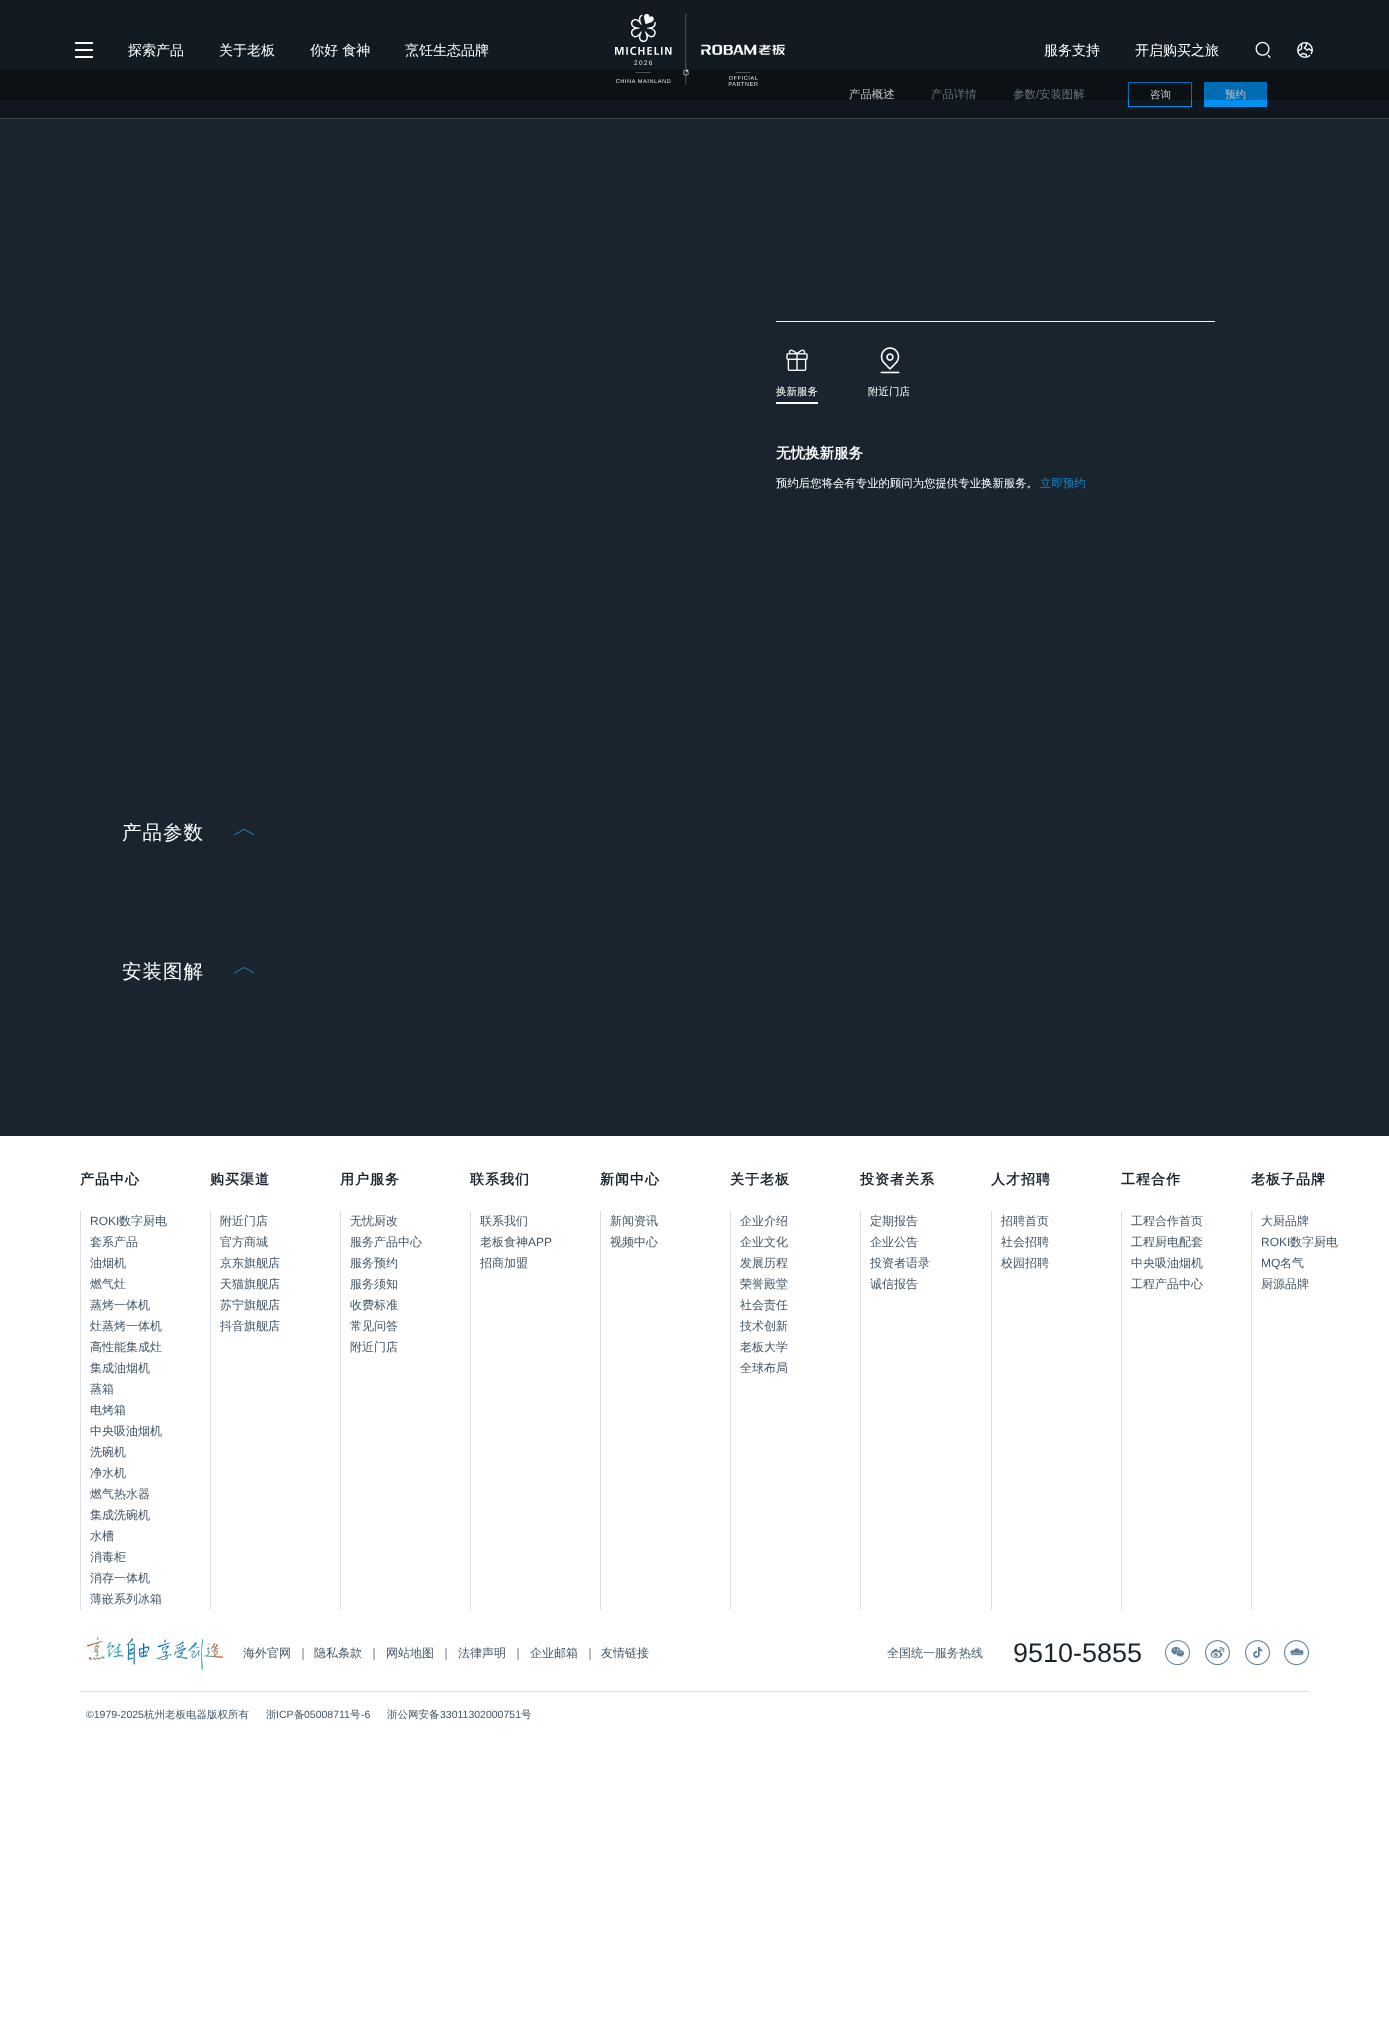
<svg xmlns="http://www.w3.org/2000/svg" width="1389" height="2040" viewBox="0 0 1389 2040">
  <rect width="100%" height="100%" fill="#ffffff"/>
  <rect x="0" y="0" width="1389" height="1136" fill="#19242e"/>
  <rect x="0" y="70" width="1389" height="48" fill="#10171e"/>
  <text x="849" y="98" font-family="WenQuanYi Zen Hei" font-size="11.4" font-weight="500" fill="#feffff">产品概述</text>
  <text x="931" y="98" font-family="WenQuanYi Zen Hei" font-size="11.4" font-weight="500" fill="#879ba5">产品详情</text>
  <text x="1013" y="98" font-family="WenQuanYi Zen Hei" font-size="11.4" font-weight="500" fill="#879ba5">参数</text>
  <text x="1036" y="98" font-family="Liberation Sans" font-size="11.4" fill="#879ba5">/</text>
  <text x="1039" y="98" font-family="WenQuanYi Zen Hei" font-size="11.4" font-weight="500" fill="#879ba5">安装图解</text>
  <rect x="1128.5" y="82.5" width="63" height="24" fill="none" stroke="#0091f0"/>
  <text x="1150" y="98" font-family="WenQuanYi Zen Hei" font-size="10.5" font-weight="500" fill="#feffff">咨询</text>
  <rect x="1204" y="82" width="63" height="25" fill="#0091f0"/>
  <text x="1225" y="98" font-family="WenQuanYi Zen Hei" font-size="10.5" font-weight="500" fill="#feffff">预约</text>
  <rect x="0" y="0" width="1389" height="100" fill="#000000" fill-opacity="0.25"/>
  <rect x="75" y="42" width="18" height="2" fill="#ffffff"/>
  <rect x="75" y="49" width="18" height="2" fill="#ffffff"/>
  <rect x="75" y="56" width="18" height="2" fill="#ffffff"/>
  <text x="128" y="55" font-family="WenQuanYi Zen Hei" font-size="14" font-weight="500" fill="#feffff">探索产品</text>
  <text x="219" y="55" font-family="WenQuanYi Zen Hei" font-size="14" font-weight="500" fill="#feffff">关于老板</text>
  <text x="310" y="55" font-family="WenQuanYi Zen Hei" font-size="14" font-weight="500" fill="#feffff">你好 食神</text>
  <text x="405" y="55" font-family="WenQuanYi Zen Hei" font-size="14" font-weight="500" fill="#feffff">烹饪生态品牌</text>
  <image x="615" y="14" width="170" height="72" href="img1.png"/>
  <text x="1044" y="55" font-family="WenQuanYi Zen Hei" font-size="14" font-weight="500" fill="#feffff">服务支持</text>
  <text x="1135" y="55" font-family="WenQuanYi Zen Hei" font-size="14" font-weight="500" fill="#feffff">开启购买之旅</text>
  <image x="1255" y="41" width="16" height="17" href="img2.png"/>
  <image x="1297" y="42" width="16" height="16" href="img3.png"/>
  <rect x="0" y="118" width="1389" height="1" fill="#40454b"/>
  <rect x="776" y="321" width="439" height="1" fill="#f5f5f5"/>
  <image x="786" y="349" width="22" height="22" href="img4.png"/>
  <text x="776" y="395" font-family="WenQuanYi Zen Hei" font-size="10.5" font-weight="500" fill="#feffff">换新服务</text>
  <rect x="776" y="402" width="42" height="2" fill="#ffffff"/>
  <image x="880" y="347" width="20" height="27" href="img5.png"/>
  <text x="868" y="395" font-family="WenQuanYi Zen Hei" font-size="10.5" font-weight="500" fill="#feffff">附近门店</text>
  <text x="776" y="458" font-family="WenQuanYi Zen Hei" font-size="14.5" font-weight="bold" fill="#feffff">无忧换新服务</text>
  <text x="776" y="487" font-family="WenQuanYi Zen Hei" font-size="11.4" font-weight="500" fill="#feffff">预约后您将会有专业的顾问为您提供专业换新服务。</text>
  <text x="1040" y="487" font-family="WenQuanYi Zen Hei" font-size="11.4" font-weight="500" fill="#1786c8">立即预约</text>
  <text x="122" y="839" font-family="WenQuanYi Zen Hei" font-size="19.5" font-weight="500" letter-spacing="1" fill="#feffff">产品参数</text>
  <image x="234" y="829" width="21" height="7" href="img6.png"/>
  <text x="122" y="978" font-family="WenQuanYi Zen Hei" font-size="19.5" font-weight="500" letter-spacing="1" fill="#feffff">安装图解</text>
  <image x="234" y="967" width="21" height="7" href="img7.png"/>
  <text x="80" y="1184" font-family="WenQuanYi Zen Hei" font-size="14" font-weight="bold" letter-spacing="1" fill="#19242e">产品中心</text>
  <rect x="80" y="1211" width="1" height="399" fill="#dae0e6"/>
  <text x="90" y="1225" font-family="Liberation Sans" font-size="12" fill="#425566">ROKI</text>
  <text x="119" y="1225" font-family="WenQuanYi Zen Hei" font-size="12" font-weight="500" fill="#425566">数字厨电</text>
  <text x="90" y="1246" font-family="WenQuanYi Zen Hei" font-size="12" font-weight="500" fill="#425566">套系产品</text>
  <text x="90" y="1267" font-family="WenQuanYi Zen Hei" font-size="12" font-weight="500" fill="#425566">油烟机</text>
  <text x="90" y="1288" font-family="WenQuanYi Zen Hei" font-size="12" font-weight="500" fill="#425566">燃气灶</text>
  <text x="90" y="1309" font-family="WenQuanYi Zen Hei" font-size="12" font-weight="500" fill="#425566">蒸烤一体机</text>
  <text x="90" y="1330" font-family="WenQuanYi Zen Hei" font-size="12" font-weight="500" fill="#425566">灶蒸烤一体机</text>
  <text x="90" y="1351" font-family="WenQuanYi Zen Hei" font-size="12" font-weight="500" fill="#425566">高性能集成灶</text>
  <text x="90" y="1372" font-family="WenQuanYi Zen Hei" font-size="12" font-weight="500" fill="#425566">集成油烟机</text>
  <text x="90" y="1393" font-family="WenQuanYi Zen Hei" font-size="12" font-weight="500" fill="#425566">蒸箱</text>
  <text x="90" y="1414" font-family="WenQuanYi Zen Hei" font-size="12" font-weight="500" fill="#425566">电烤箱</text>
  <text x="90" y="1435" font-family="WenQuanYi Zen Hei" font-size="12" font-weight="500" fill="#425566">中央吸油烟机</text>
  <text x="90" y="1456" font-family="WenQuanYi Zen Hei" font-size="12" font-weight="500" fill="#425566">洗碗机</text>
  <text x="90" y="1477" font-family="WenQuanYi Zen Hei" font-size="12" font-weight="500" fill="#425566">净水机</text>
  <text x="90" y="1498" font-family="WenQuanYi Zen Hei" font-size="12" font-weight="500" fill="#425566">燃气热水器</text>
  <text x="90" y="1519" font-family="WenQuanYi Zen Hei" font-size="12" font-weight="500" fill="#425566">集成洗碗机</text>
  <text x="90" y="1540" font-family="WenQuanYi Zen Hei" font-size="12" font-weight="500" fill="#425566">水槽</text>
  <text x="90" y="1561" font-family="WenQuanYi Zen Hei" font-size="12" font-weight="500" fill="#425566">消毒柜</text>
  <text x="90" y="1582" font-family="WenQuanYi Zen Hei" font-size="12" font-weight="500" fill="#425566">消存一体机</text>
  <text x="90" y="1603" font-family="WenQuanYi Zen Hei" font-size="12" font-weight="500" fill="#425566">薄嵌系列冰箱</text>
  <text x="210" y="1184" font-family="WenQuanYi Zen Hei" font-size="14" font-weight="bold" letter-spacing="1" fill="#19242e">购买渠道</text>
  <rect x="210" y="1211" width="1" height="399" fill="#dae0e6"/>
  <text x="220" y="1225" font-family="WenQuanYi Zen Hei" font-size="12" font-weight="500" fill="#425566">附近门店</text>
  <text x="220" y="1246" font-family="WenQuanYi Zen Hei" font-size="12" font-weight="500" fill="#425566">官方商城</text>
  <text x="220" y="1267" font-family="WenQuanYi Zen Hei" font-size="12" font-weight="500" fill="#425566">京东旗舰店</text>
  <text x="220" y="1288" font-family="WenQuanYi Zen Hei" font-size="12" font-weight="500" fill="#425566">天猫旗舰店</text>
  <text x="220" y="1309" font-family="WenQuanYi Zen Hei" font-size="12" font-weight="500" fill="#425566">苏宁旗舰店</text>
  <text x="220" y="1330" font-family="WenQuanYi Zen Hei" font-size="12" font-weight="500" fill="#425566">抖音旗舰店</text>
  <text x="340" y="1184" font-family="WenQuanYi Zen Hei" font-size="14" font-weight="bold" letter-spacing="1" fill="#19242e">用户服务</text>
  <rect x="340" y="1211" width="1" height="399" fill="#dae0e6"/>
  <text x="350" y="1225" font-family="WenQuanYi Zen Hei" font-size="12" font-weight="500" fill="#425566">无忧厨改</text>
  <text x="350" y="1246" font-family="WenQuanYi Zen Hei" font-size="12" font-weight="500" fill="#425566">服务产品中心</text>
  <text x="350" y="1267" font-family="WenQuanYi Zen Hei" font-size="12" font-weight="500" fill="#425566">服务预约</text>
  <text x="350" y="1288" font-family="WenQuanYi Zen Hei" font-size="12" font-weight="500" fill="#425566">服务须知</text>
  <text x="350" y="1309" font-family="WenQuanYi Zen Hei" font-size="12" font-weight="500" fill="#425566">收费标准</text>
  <text x="350" y="1330" font-family="WenQuanYi Zen Hei" font-size="12" font-weight="500" fill="#425566">常见问答</text>
  <text x="350" y="1351" font-family="WenQuanYi Zen Hei" font-size="12" font-weight="500" fill="#425566">附近门店</text>
  <text x="470" y="1184" font-family="WenQuanYi Zen Hei" font-size="14" font-weight="bold" letter-spacing="1" fill="#19242e">联系我们</text>
  <rect x="470" y="1211" width="1" height="399" fill="#dae0e6"/>
  <text x="480" y="1225" font-family="WenQuanYi Zen Hei" font-size="12" font-weight="500" fill="#425566">联系我们</text>
  <text x="480" y="1246" font-family="WenQuanYi Zen Hei" font-size="12" font-weight="500" fill="#425566">老板食神</text>
  <text x="528" y="1246" font-family="Liberation Sans" font-size="12" fill="#425566">APP</text>
  <text x="480" y="1267" font-family="WenQuanYi Zen Hei" font-size="12" font-weight="500" fill="#425566">招商加盟</text>
  <text x="600" y="1184" font-family="WenQuanYi Zen Hei" font-size="14" font-weight="bold" letter-spacing="1" fill="#19242e">新闻中心</text>
  <rect x="600" y="1211" width="1" height="399" fill="#dae0e6"/>
  <text x="610" y="1225" font-family="WenQuanYi Zen Hei" font-size="12" font-weight="500" fill="#425566">新闻资讯</text>
  <text x="610" y="1246" font-family="WenQuanYi Zen Hei" font-size="12" font-weight="500" fill="#425566">视频中心</text>
  <text x="730" y="1184" font-family="WenQuanYi Zen Hei" font-size="14" font-weight="bold" letter-spacing="1" fill="#19242e">关于老板</text>
  <rect x="730" y="1211" width="1" height="399" fill="#dae0e6"/>
  <text x="740" y="1225" font-family="WenQuanYi Zen Hei" font-size="12" font-weight="500" fill="#425566">企业介绍</text>
  <text x="740" y="1246" font-family="WenQuanYi Zen Hei" font-size="12" font-weight="500" fill="#425566">企业文化</text>
  <text x="740" y="1267" font-family="WenQuanYi Zen Hei" font-size="12" font-weight="500" fill="#425566">发展历程</text>
  <text x="740" y="1288" font-family="WenQuanYi Zen Hei" font-size="12" font-weight="500" fill="#425566">荣誉殿堂</text>
  <text x="740" y="1309" font-family="WenQuanYi Zen Hei" font-size="12" font-weight="500" fill="#425566">社会责任</text>
  <text x="740" y="1330" font-family="WenQuanYi Zen Hei" font-size="12" font-weight="500" fill="#425566">技术创新</text>
  <text x="740" y="1351" font-family="WenQuanYi Zen Hei" font-size="12" font-weight="500" fill="#425566">老板大学</text>
  <text x="740" y="1372" font-family="WenQuanYi Zen Hei" font-size="12" font-weight="500" fill="#425566">全球布局</text>
  <text x="860" y="1184" font-family="WenQuanYi Zen Hei" font-size="14" font-weight="bold" letter-spacing="1" fill="#19242e">投资者关系</text>
  <rect x="860" y="1211" width="1" height="399" fill="#dae0e6"/>
  <text x="870" y="1225" font-family="WenQuanYi Zen Hei" font-size="12" font-weight="500" fill="#425566">定期报告</text>
  <text x="870" y="1246" font-family="WenQuanYi Zen Hei" font-size="12" font-weight="500" fill="#425566">企业公告</text>
  <text x="870" y="1267" font-family="WenQuanYi Zen Hei" font-size="12" font-weight="500" fill="#425566">投资者语录</text>
  <text x="870" y="1288" font-family="WenQuanYi Zen Hei" font-size="12" font-weight="500" fill="#425566">诚信报告</text>
  <text x="991" y="1184" font-family="WenQuanYi Zen Hei" font-size="14" font-weight="bold" letter-spacing="1" fill="#19242e">人才招聘</text>
  <rect x="991" y="1211" width="1" height="399" fill="#dae0e6"/>
  <text x="1001" y="1225" font-family="WenQuanYi Zen Hei" font-size="12" font-weight="500" fill="#425566">招聘首页</text>
  <text x="1001" y="1246" font-family="WenQuanYi Zen Hei" font-size="12" font-weight="500" fill="#425566">社会招聘</text>
  <text x="1001" y="1267" font-family="WenQuanYi Zen Hei" font-size="12" font-weight="500" fill="#425566">校园招聘</text>
  <text x="1121" y="1184" font-family="WenQuanYi Zen Hei" font-size="14" font-weight="bold" letter-spacing="1" fill="#19242e">工程合作</text>
  <rect x="1121" y="1211" width="1" height="399" fill="#dae0e6"/>
  <text x="1131" y="1225" font-family="WenQuanYi Zen Hei" font-size="12" font-weight="500" fill="#425566">工程合作首页</text>
  <text x="1131" y="1246" font-family="WenQuanYi Zen Hei" font-size="12" font-weight="500" fill="#425566">工程厨电配套</text>
  <text x="1131" y="1267" font-family="WenQuanYi Zen Hei" font-size="12" font-weight="500" fill="#425566">中央吸油烟机</text>
  <text x="1131" y="1288" font-family="WenQuanYi Zen Hei" font-size="12" font-weight="500" fill="#425566">工程产品中心</text>
  <text x="1251" y="1184" font-family="WenQuanYi Zen Hei" font-size="14" font-weight="bold" letter-spacing="1" fill="#19242e">老板子品牌</text>
  <rect x="1251" y="1211" width="1" height="399" fill="#dae0e6"/>
  <text x="1261" y="1225" font-family="WenQuanYi Zen Hei" font-size="12" font-weight="500" fill="#425566">大厨品牌</text>
  <text x="1261" y="1246" font-family="Liberation Sans" font-size="12" fill="#425566">ROKI</text>
  <text x="1290" y="1246" font-family="WenQuanYi Zen Hei" font-size="12" font-weight="500" fill="#425566">数字厨电</text>
  <text x="1261" y="1267" font-family="Liberation Sans" font-size="12" fill="#425566">MQ</text>
  <text x="1280" y="1267" font-family="WenQuanYi Zen Hei" font-size="12" font-weight="500" fill="#425566">名气</text>
  <text x="1261" y="1288" font-family="WenQuanYi Zen Hei" font-size="12" font-weight="500" fill="#425566">厨源品牌</text>
  <image x="87" y="1637" width="137" height="33" href="img8.png"/>
  <text x="243" y="1657" font-family="WenQuanYi Zen Hei" font-size="12" font-weight="500" fill="#425566">海外官网</text>
  <text x="297" y="1657" font-family="WenQuanYi Zen Hei" font-size="12" font-weight="500" fill="#425566">｜</text>
  <text x="314" y="1657" font-family="WenQuanYi Zen Hei" font-size="12" font-weight="500" fill="#425566">隐私条款</text>
  <text x="368" y="1657" font-family="WenQuanYi Zen Hei" font-size="12" font-weight="500" fill="#425566">｜</text>
  <text x="386" y="1657" font-family="WenQuanYi Zen Hei" font-size="12" font-weight="500" fill="#425566">网站地图</text>
  <text x="440" y="1657" font-family="WenQuanYi Zen Hei" font-size="12" font-weight="500" fill="#425566">｜</text>
  <text x="458" y="1657" font-family="WenQuanYi Zen Hei" font-size="12" font-weight="500" fill="#425566">法律声明</text>
  <text x="512" y="1657" font-family="WenQuanYi Zen Hei" font-size="12" font-weight="500" fill="#425566">｜</text>
  <text x="530" y="1657" font-family="WenQuanYi Zen Hei" font-size="12" font-weight="500" fill="#425566">企业邮箱</text>
  <text x="584" y="1657" font-family="WenQuanYi Zen Hei" font-size="12" font-weight="500" fill="#425566">｜</text>
  <text x="601" y="1657" font-family="WenQuanYi Zen Hei" font-size="12" font-weight="500" fill="#425566">友情链接</text>
  <text x="887" y="1657" font-family="WenQuanYi Zen Hei" font-size="12" font-weight="500" fill="#425566">全国统一服务热线</text>
  <text x="1013" y="1662" font-family="Liberation Sans" font-size="27" fill="#19242e">9510-5855</text>
  <image x="1165" y="1640" width="25" height="26" href="img9.png"/>
  <image x="1205" y="1640" width="25" height="26" href="img10.png"/>
  <image x="1245" y="1640" width="25" height="26" href="img11.png"/>
  <image x="1284" y="1640" width="25" height="26" href="img12.png"/>
  <rect x="80" y="1691" width="1229" height="1" fill="#dae0e6"/>
  <text x="86" y="1718" font-family="Liberation Sans" font-size="10.5" fill="#425566">©1979-2025</text>
  <text x="144" y="1718" font-family="WenQuanYi Zen Hei" font-size="10.5" font-weight="500" fill="#425566">杭州老板电器版权所有</text>
  <text x="266" y="1718" font-family="WenQuanYi Zen Hei" font-size="10.5" font-weight="500" fill="#425566">浙</text>
  <text x="276" y="1718" font-family="Liberation Sans" font-size="10.5" fill="#425566">ICP</text>
  <text x="294" y="1718" font-family="WenQuanYi Zen Hei" font-size="10.5" font-weight="500" fill="#425566">备</text>
  <text x="304" y="1718" font-family="Liberation Sans" font-size="10.5" fill="#425566">05008711</text>
  <text x="350" y="1718" font-family="WenQuanYi Zen Hei" font-size="10.5" font-weight="500" fill="#425566">号</text>
  <text x="361" y="1718" font-family="Liberation Sans" font-size="10.5" fill="#425566">-6</text>
  <text x="387" y="1718" font-family="WenQuanYi Zen Hei" font-size="10.5" font-weight="500" fill="#425566">浙公网安备</text>
  <text x="440" y="1718" font-family="Liberation Sans" font-size="10.5" fill="#425566">33011302000751</text>
  <text x="521" y="1718" font-family="WenQuanYi Zen Hei" font-size="10.5" font-weight="500" fill="#425566">号</text>
</svg>
